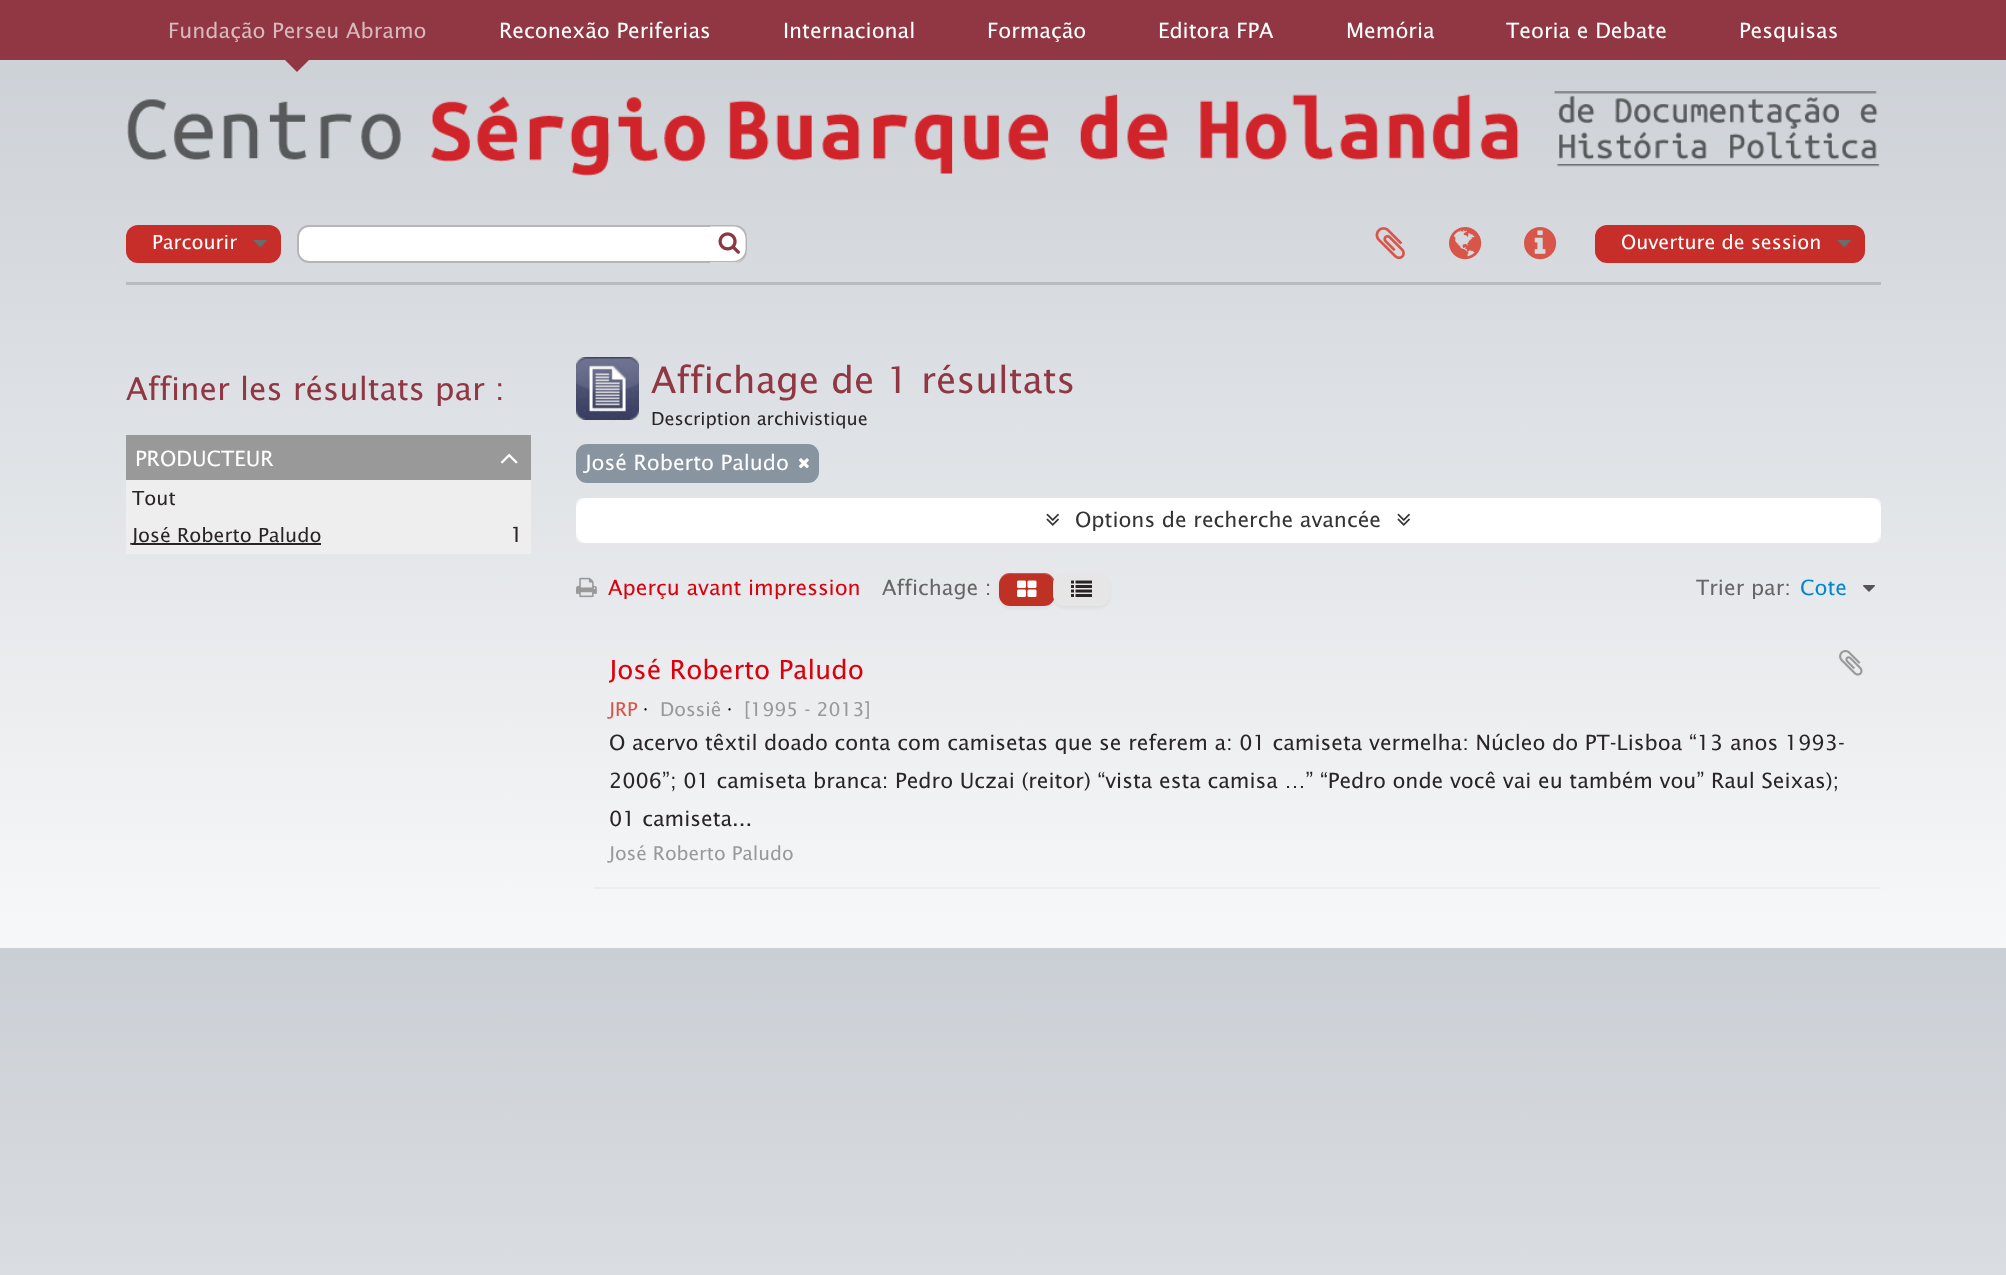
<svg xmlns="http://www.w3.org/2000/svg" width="2006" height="1275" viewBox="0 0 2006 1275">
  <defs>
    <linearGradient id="g1" gradientUnits="userSpaceOnUse" x1="1004" y1="0" x2="1004" y2="1110"><stop offset="0" stop-color="#cacfd5"/><stop offset="1" stop-color="#ffffff"/></linearGradient>
    <linearGradient id="g2" gradientUnits="userSpaceOnUse" x1="1004" y1="948" x2="1004" y2="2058"><stop offset="0" stop-color="#cacfd5"/><stop offset="1" stop-color="#ffffff"/></linearGradient>
    <filter id="blur1" x="-50%" y="-200%" width="200%" height="500%"><feGaussianBlur stdDeviation="1.5"/></filter>
    <clipPath id="clip1"><rect x="609" y="648" width="1220" height="47"/></clipPath>
  </defs>
  <rect width="100%" height="100%" fill="#ffffff"/>
  <rect x="0" y="60" width="2006" height="888" fill="url(#g1)"/>
  <rect x="0" y="948" width="2006" height="327" fill="url(#g2)"/>
  <rect x="0" y="0" width="2006" height="60" fill="#903743"/>
  <text x="168" y="38" font-family="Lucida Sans" font-size="21" fill="#d8b9bd">Fundação Perseu Abramo</text>
  <path d="M285 60H309L297 72Z" fill="#903743"/>
  <text x="499" y="38" font-family="Lucida Sans" font-size="21" fill="#ffffff">Reconexão Periferias</text>
  <text x="783" y="38" font-family="Lucida Sans" font-size="21" fill="#ffffff">Internacional</text>
  <text x="987" y="38" font-family="Lucida Sans" font-size="21" fill="#ffffff">Formação</text>
  <text x="1158" y="38" font-family="Lucida Sans" font-size="21" fill="#ffffff">Editora FPA</text>
  <text x="1346" y="38" font-family="Lucida Sans" font-size="21" fill="#ffffff">Memória</text>
  <text x="1506" y="38" font-family="Lucida Sans" font-size="21" fill="#ffffff">Teoria e Debate</text>
  <text x="1739" y="38" font-family="Lucida Sans" font-size="21" fill="#ffffff">Pesquisas</text>
  <image x="127" y="91" width="1753" height="85" href="img1.png"/>
  <rect x="126" y="225" width="155" height="38" rx="12" fill="#c72d29"/>
  <image x="253" y="240" width="15" height="8" href="img2.png"/>
  <text x="152" y="249" font-family="Lucida Sans" font-size="19.5" fill="#ffffff">Parcourir</text>
  <rect x="298" y="226" width="448" height="36" rx="11" fill="#ffffff" stroke="#b5b5b5" stroke-width="2"/>
  <path d="M710 225H733C740.5 225 747 231.5 747 239V249C747 256.5 740.5 263 733 263H710Z" fill="#ffffff"/>
  <path d="M709.5 225H733.5C741 225 747 231 747 238.5V249C747 256.5 741 262.5 733.5 262.5H709.5ZM709.5 226.5H733.5C740 226.5 745.5 232 745.5 238.5V249C745.5 255.5 740 261 733.5 261H709.5Z" fill="#b5b5b5" fill-rule="evenodd"/>
  <image x="718" y="232" width="22" height="22" href="img3.png"/>
  <image x="1375" y="227" width="30" height="33" href="img4.png"/>
  <image x="1449" y="227" width="33" height="33" href="img5.png"/>
  <image x="1524" y="227" width="33" height="33" href="img6.png"/>
  <rect x="1595" y="225" width="270" height="38" rx="12" fill="#c72d29"/>
  <image x="1837" y="240" width="15" height="8" href="img2.png"/>
  <text x="1621" y="249" font-family="Lucida Sans" font-size="19.5" fill="#ffffff">Ouverture de session</text>
  <rect x="126" y="282" width="1755" height="3" fill="#b9bbc3"/>
  <text x="126" y="400" font-family="Lucida Sans" font-size="31.5" fill="#903743">Affiner les résultats par :</text>
  <rect x="126" y="435" width="405" height="45" fill="#999999"/>
  <text x="135" y="466" font-family="Lucida Sans" font-size="21" fill="#ffffff">PRODUCTEUR</text>
  <image x="500" y="453" width="18" height="11" href="img7.png"/>
  <rect x="126" y="480" width="405" height="74" fill="#eeeeee"/>
  <text x="132" y="505" font-family="Lucida Sans" font-size="19.5" fill="#2a2426">Tout</text>
  <rect x="132" y="543" width="189" height="2" fill="#2a2426"/>
  <text x="132" y="542" font-family="Lucida Sans" font-size="19.5" fill="#2a2426">José Roberto Paludo</text>
  <text x="510" y="542" font-family="Lucida Sans" font-size="21" fill="#2a2426">1</text>
  <image x="576" y="357" width="63" height="63" href="img8.png"/>
  <text x="651" y="393" font-family="Lucida Sans" font-size="36.75" fill="#903743">Affichage de 1 résultats</text>
  <text x="651" y="425" font-family="Lucida Sans" font-size="18" fill="#2a2426">Description archivistique</text>
  <rect x="576" y="444" width="243" height="39" rx="11" fill="#8895a0"/>
  <text x="585" y="470" font-family="Lucida Sans" font-size="21" fill="#ffffff">José Roberto Paludo</text>
  <image x="799" y="458" width="10" height="11" href="img9.png"/>
  <rect x="576" y="498" width="1305" height="45" rx="6" fill="#f1f2f4"/>
  <rect x="576" y="498" width="1305" height="45" rx="11" fill="#ffffff"/>
  <image x="1046" y="513" width="13" height="13" href="img10.png"/>
  <text x="1075" y="527" font-family="Lucida Sans" font-size="21" fill="#333333">Options de recherche avancée</text>
  <image x="1397" y="513" width="13" height="13" href="img10.png"/>
  <image x="576" y="577" width="21" height="21" href="img11.png"/>
  <text x="608" y="595" font-family="Lucida Sans" font-size="21" fill="#db000c">Aperçu avant impression</text>
  <text x="882" y="595" font-family="Lucida Sans" font-size="21" fill="#666666">Affichage :</text>
  <rect x="999" y="575" width="56" height="33" rx="11" fill="#000000" fill-opacity="0.05" filter="url(#blur1)"/>
  <rect x="999" y="573" width="56" height="33" rx="11" fill="#bf3125"/>
  <path d="M1010 574H1033C1047 574 1054 572 1054 589V601C1056 597 1055 592 1055 588C1055 575 1050 573 1038 573H1016C1007 573 999 574 999 585C999 579 1004 574 1010 574Z" fill="#ffffff" fill-opacity="0.2"/>
  <image x="1017" y="580" width="20" height="17" href="img12.png"/>
  <rect x="1053" y="575" width="57" height="33" rx="11" fill="#000000" fill-opacity="0.05" filter="url(#blur1)"/>
  <rect x="1053" y="573" width="57" height="33" rx="11" fill="#e6e6e6"/>
  <image x="1071" y="580" width="21" height="17" href="img13.png"/>
  <text x="1696" y="595" font-family="Lucida Sans" font-size="21" fill="#666666">Trier par:</text>
  <text x="1800" y="595" font-family="Lucida Sans" font-size="21" fill="#0088cc">Cote</text>
  <image x="1863" y="585" width="12" height="7" href="img14.png"/>
  <rect x="594" y="887" width="1287" height="2" fill="#eeeeee"/>
  <g clip-path="url(#clip1)">
    <text x="609" y="679" font-family="Lucida Sans" font-size="26.25" fill="#db000c">José Roberto Paludo</text>
  </g>
  <image x="1839" y="650" width="24" height="26" href="img15.png"/>
  <text x="609" y="716" font-family="Lucida Sans" font-size="19" fill="#d8554a">JRP</text>
  <text x="643" y="716" font-family="Open Sans" font-size="19" fill="#000000">·</text>
  <text x="660" y="716" font-family="Lucida Sans" font-size="19" fill="#999999">Dossiê</text>
  <text x="727" y="716" font-family="Open Sans" font-size="19" fill="#000000">·</text>
  <text x="744" y="716" font-family="Lucida Sans" font-size="19" fill="#999999">[1995 - 2013]</text>
  <text x="609" y="750" font-family="Lucida Sans" font-size="21" fill="#2a2426">O acervo têxtil doado conta com camisetas que se referem a: 01 camiseta vermelha: Núcleo do PT-Lisboa “13 anos 1993-</text>
  <text x="609" y="788" font-family="Lucida Sans" font-size="21" fill="#2a2426">2006”; 01 camiseta branca: Pedro Uczai (reitor) “vista esta camisa …” “Pedro onde você vai eu também vou” Raul Seixas);</text>
  <text x="609" y="826" font-family="Lucida Sans" font-size="21" fill="#2a2426">01 camiseta...</text>
  <text x="609" y="860" font-family="Lucida Sans" font-size="19" fill="#999999">José Roberto Paludo</text>
</svg>
